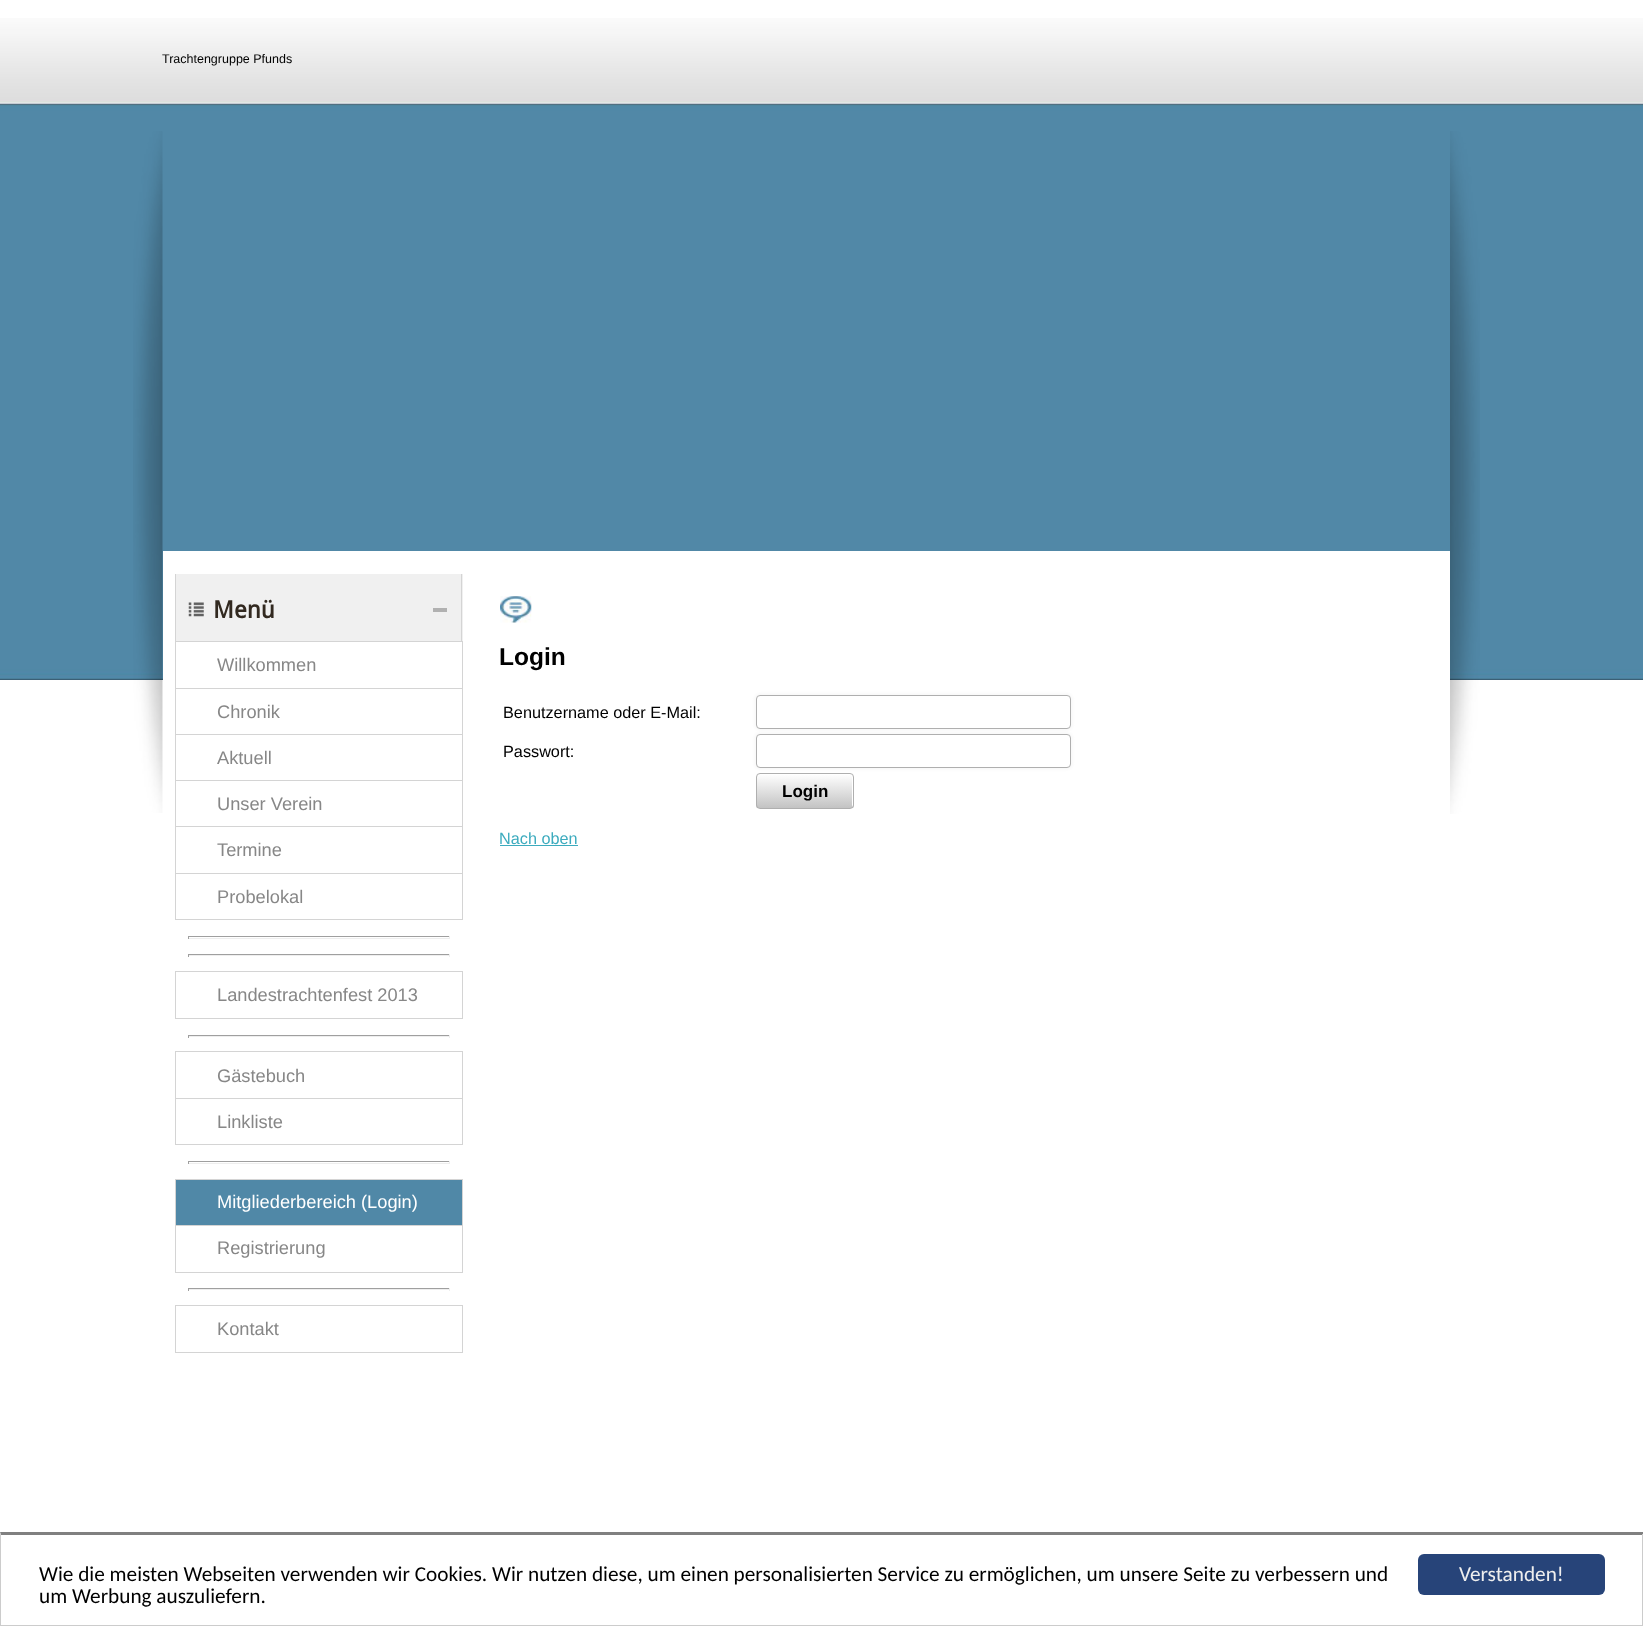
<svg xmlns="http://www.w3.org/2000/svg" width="1643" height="1626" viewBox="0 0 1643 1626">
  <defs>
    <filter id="blur1" x="-50%" y="-200%" width="200%" height="500%"><feGaussianBlur stdDeviation="2"/></filter>
    <clipPath id="clip1"><rect x="756" y="773" width="98" height="36" rx="4"/></clipPath>
    <linearGradient id="g1" gradientUnits="userSpaceOnUse" x1="805" y1="774" x2="805" y2="808"><stop offset="0" stop-color="#ffffff"/><stop offset="1" stop-color="#c3c3c3"/></linearGradient>
  </defs>
  <rect width="100%" height="100%" fill="#ffffff"/>
  <image x="0" y="18" width="1643" height="662" href="img1.png"/>
  <image x="133" y="131" width="30" height="682" href="img2.png"/>
  <text x="162" y="63" font-family="Liberation Sans" font-size="12.5" fill="#000000">Trachtengruppe Pfunds</text>
  <rect x="163" y="551" width="1287" height="129" fill="#ffffff"/>
  <rect x="176" y="574" width="287" height="67" fill="#f0f0f0"/>
  <rect x="461" y="574" width="1" height="69" fill="#d4d4d4"/>
  <rect x="175" y="574" width="1" height="69" fill="#d4d4d4"/>
  <image x="188" y="602" width="16" height="15" href="img3.png"/>
  <text x="213" y="618" font-family="Droid Sans" font-size="24" font-weight="bold" fill="#322920">Menü</text>
  <rect x="433" y="608" width="14" height="4" fill="#b1b1b1"/>
  <rect x="461" y="642" width="1" height="1" fill="#ffffff"/>
  <rect x="175.5" y="641.5" width="287" height="47" fill="none" stroke="#d4d4d4"/>
  <text x="217" y="671" font-family="Liberation Sans" font-size="18.25" fill="#878787">Willkommen</text>
  <rect x="175.5" y="688.5" width="287" height="46" fill="none" stroke="#d4d4d4"/>
  <text x="217" y="718" font-family="Liberation Sans" font-size="18.25" fill="#878787">Chronik</text>
  <rect x="175.5" y="734.5" width="287" height="46" fill="none" stroke="#d4d4d4"/>
  <text x="217" y="764" font-family="Liberation Sans" font-size="18.25" fill="#878787">Aktuell</text>
  <rect x="175.5" y="780.5" width="287" height="47" fill="none" stroke="#d4d4d4"/>
  <text x="217" y="810" font-family="Liberation Sans" font-size="18.25" fill="#878787">Unser Verein</text>
  <rect x="176" y="827" width="286" height="1" fill="#ffffff"/>
  <rect x="175.5" y="826.5" width="287" height="47" fill="none" stroke="#d4d4d4"/>
  <text x="217" y="856" font-family="Liberation Sans" font-size="18.25" fill="#878787">Termine</text>
  <rect x="175.5" y="873.5" width="287" height="46" fill="none" stroke="#d4d4d4"/>
  <text x="217" y="903" font-family="Liberation Sans" font-size="18.25" fill="#878787">Probelokal</text>
  <rect x="188" y="936" width="262" height="1" fill="#9f9f9f"/>
  <rect x="449" y="936" width="1" height="3" fill="#eeeeee"/>
  <rect x="188" y="938" width="262" height="1" fill="#eeeeee"/>
  <rect x="188" y="936" width="1" height="3" fill="#9f9f9f"/>
  <rect x="188" y="954" width="262" height="1" fill="#9f9f9f"/>
  <rect x="449" y="954" width="1" height="3" fill="#eeeeee"/>
  <rect x="188" y="955" width="262" height="1" fill="#eeeeee"/>
  <rect x="188" y="954" width="1" height="3" fill="#9f9f9f"/>
  <rect x="175.5" y="971.5" width="287" height="47" fill="none" stroke="#d4d4d4"/>
  <text x="217" y="1001" font-family="Liberation Sans" font-size="18.25" fill="#878787">Landestrachtenfest 2013</text>
  <rect x="188" y="1035" width="262" height="1" fill="#9f9f9f"/>
  <rect x="449" y="1035" width="1" height="3" fill="#eeeeee"/>
  <rect x="188" y="1036" width="262" height="1" fill="#eeeeee"/>
  <rect x="188" y="1035" width="1" height="3" fill="#9f9f9f"/>
  <rect x="175.5" y="1051.5" width="287" height="47" fill="none" stroke="#d4d4d4"/>
  <text x="217" y="1082" font-family="Liberation Sans" font-size="18.25" fill="#878787">Gästebuch</text>
  <rect x="175.5" y="1098.5" width="287" height="46" fill="none" stroke="#d4d4d4"/>
  <text x="217" y="1128" font-family="Liberation Sans" font-size="18.25" fill="#878787">Linkliste</text>
  <rect x="188" y="1161" width="262" height="1" fill="#9f9f9f"/>
  <rect x="449" y="1161" width="1" height="3" fill="#eeeeee"/>
  <rect x="188" y="1163" width="262" height="1" fill="#eeeeee"/>
  <rect x="188" y="1161" width="1" height="3" fill="#9f9f9f"/>
  <rect x="175.5" y="1179.5" width="287" height="46" fill="#5088a7" stroke="#d4d4d4"/>
  <text x="217" y="1208" font-family="Liberation Sans" font-size="18.25" fill="#ffffff">Mitgliederbereich (Login)</text>
  <rect x="175.5" y="1225.5" width="287" height="47" fill="none" stroke="#d4d4d4"/>
  <text x="217" y="1254" font-family="Liberation Sans" font-size="18.25" fill="#878787">Registrierung</text>
  <rect x="188" y="1288" width="262" height="1" fill="#9f9f9f"/>
  <rect x="449" y="1288" width="1" height="3" fill="#eeeeee"/>
  <rect x="188" y="1289" width="262" height="1" fill="#eeeeee"/>
  <rect x="188" y="1288" width="1" height="3" fill="#9f9f9f"/>
  <rect x="175.5" y="1305.5" width="287" height="47" fill="none" stroke="#d4d4d4"/>
  <text x="217" y="1335" font-family="Liberation Sans" font-size="18.25" fill="#878787">Kontakt</text>
  <image x="500" y="596" width="32" height="27" href="img4.png"/>
  <text x="499" y="665" font-family="Liberation Sans" font-size="24.5" font-weight="bold" fill="#000000">Login</text>
  <text x="503" y="718" font-family="Liberation Sans" font-size="16.25" fill="#000000">Benutzername oder E-Mail:</text>
  <rect x="756" y="695" width="315" height="34" rx="4" fill="#efefef" filter="url(#blur1)"/>
  <rect x="756.5" y="695.5" width="314" height="33" rx="3.5" fill="#ffffff" stroke="#afafaf"/>
  <text x="503" y="757" font-family="Liberation Sans" font-size="16.25" fill="#000000">Passwort:</text>
  <rect x="756" y="734" width="315" height="34" rx="4" fill="#efefef" filter="url(#blur1)"/>
  <rect x="756.5" y="734.5" width="314" height="33" rx="3.5" fill="#ffffff" stroke="#afafaf"/>
  <g clip-path="url(#clip1)">
    <rect x="756" y="774" width="98" height="34" fill="url(#g1)"/>
  </g>
  <path d="M760 775H835C854 775 852 771 852 787V808C852 807 853 806 853 806V776C853 775 852 774 850 774H760C759 774 758 775 758 776V778C758 776 759 775 760 775Z" fill="#ffffff"/>
  <rect x="756.5" y="773.5" width="97" height="35" rx="3.5" fill="none" stroke="#afafaf"/>
  <text x="782" y="797" font-family="Liberation Sans" font-size="17" font-weight="bold" fill="#000000">Login</text>
  <text x="499" y="844" font-family="Liberation Sans" font-size="16.25" fill="#3cabbe">Nach oben</text>
  <rect x="500" y="845" width="78" height="1" fill="#3cabbe"/>
  <image x="1450" y="131" width="30" height="683" href="img5.png"/>
  <path d="M0 1532H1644L1642 1535H1Z" fill="#808080"/>
  <path d="M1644 1532V1626L1642 1625V1535Z" fill="#cccccc"/>
  <rect x="0" y="1625" width="1643" height="1" fill="#cccccc"/>
  <path d="M0 1626V1532L1 1535V1625Z" fill="#cccccc"/>
  <text x="39" y="1581" font-family="Carlito" font-size="21.25" fill="#000000">Wie die meisten Webseiten verwenden wir Cookies. Wir nutzen diese, um einen personalisierten Service zu ermöglichen, um unsere Seite zu verbessern und</text>
  <text x="39" y="1603" font-family="Carlito" font-size="21.25" fill="#000000">um Werbung auszuliefern.</text>
  <rect x="1418" y="1554" width="187" height="41" rx="6" fill="#274479"/>
  <text x="1459" y="1581" font-family="Carlito" font-size="21.25" fill="#eeeeee">Verstanden!</text>
</svg>
